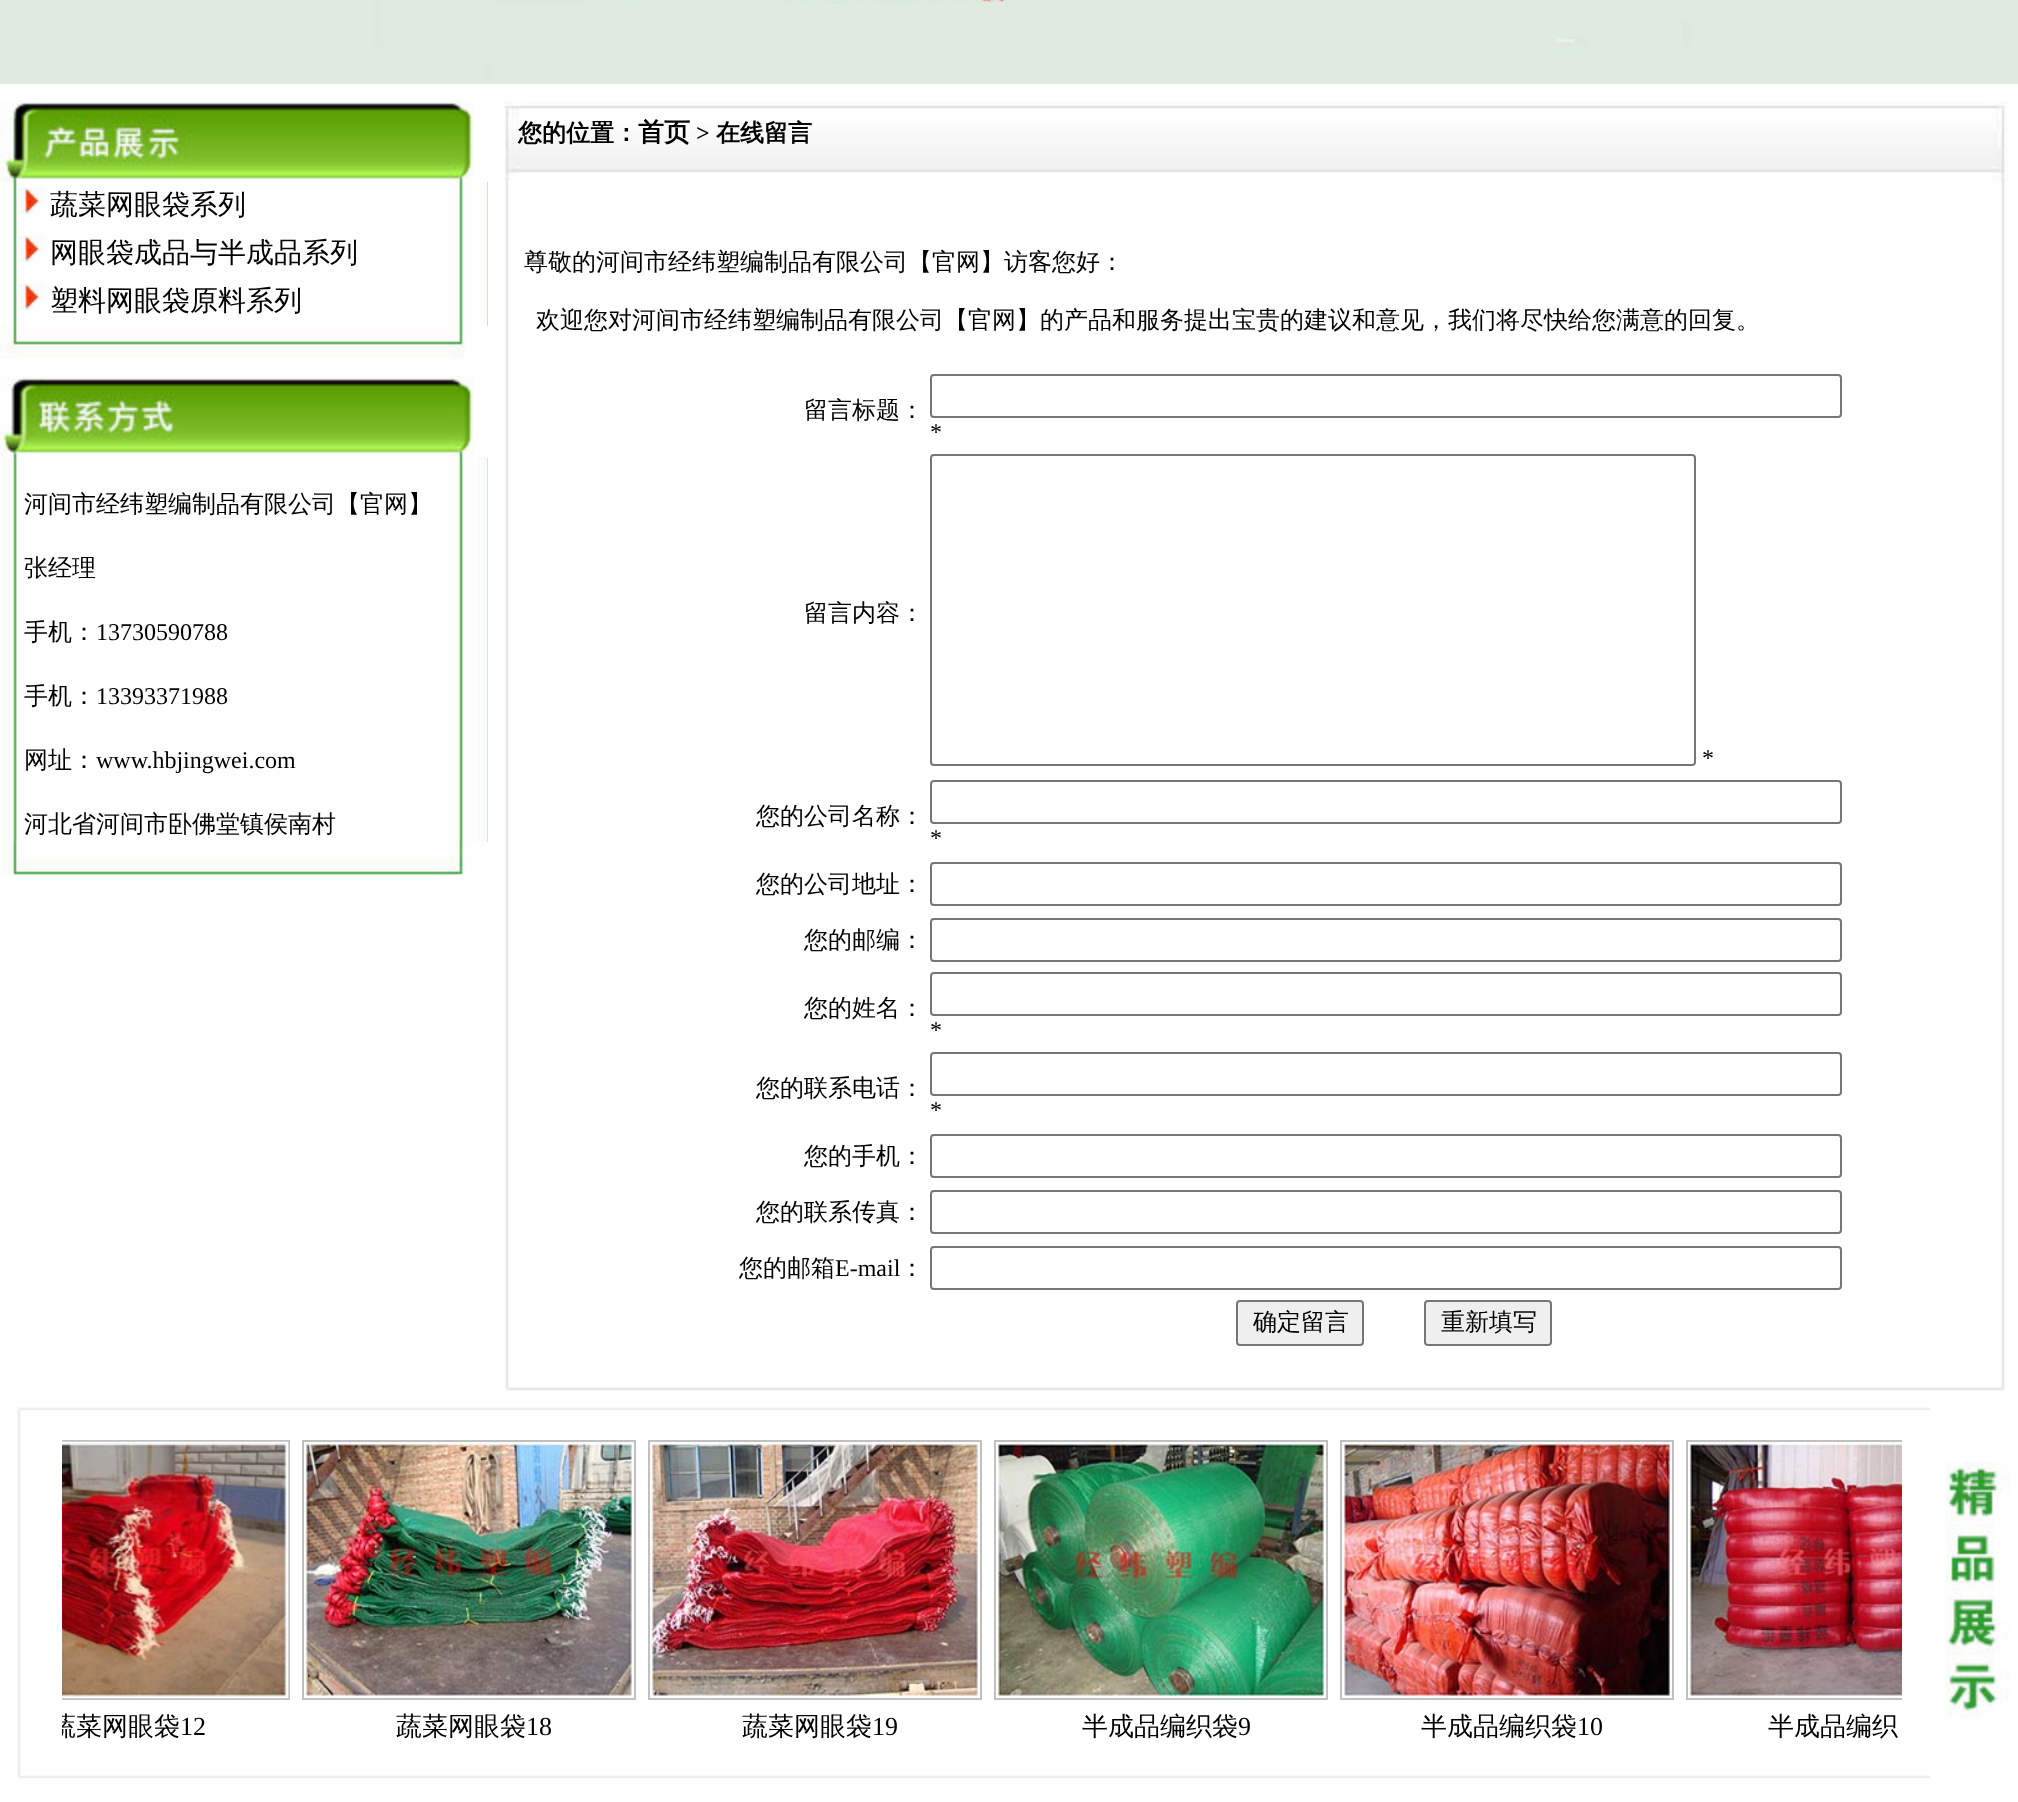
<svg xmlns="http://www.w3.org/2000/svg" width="2018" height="1802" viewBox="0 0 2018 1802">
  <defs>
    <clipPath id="clip1"><rect x="62" y="1440" width="1840" height="304"/></clipPath>
  </defs>
  <rect width="100%" height="100%" fill="#ffffff"/>
  <image x="0" y="0" width="2018" height="84" href="img1.png"/>
  <image x="0" y="100" width="474" height="82" href="img2.png"/>
  <image x="2" y="182" width="486" height="48" href="img3.png"/>
  <image x="18" y="188" width="26" height="26" href="img4.png"/>
  <text x="50" y="214" font-family="WenQuanYi Zen Hei" font-size="28" font-weight="500" fill="#000000">蔬菜网眼袋系列</text>
  <image x="2" y="230" width="486" height="48" href="img3.png"/>
  <image x="18" y="236" width="26" height="26" href="img4.png"/>
  <text x="50" y="262" font-family="WenQuanYi Zen Hei" font-size="28" font-weight="500" fill="#000000">网眼袋成品与半成品系列</text>
  <image x="2" y="278" width="486" height="48" href="img3.png"/>
  <image x="18" y="284" width="26" height="26" href="img4.png"/>
  <text x="50" y="310" font-family="WenQuanYi Zen Hei" font-size="28" font-weight="500" fill="#000000">塑料网眼袋原料系列</text>
  <image x="0" y="326" width="465" height="33" href="img5.png"/>
  <image x="0" y="376" width="474" height="82" href="img6.png"/>
  <image x="2" y="458" width="486" height="384" href="img7.png"/>
  <text x="24" y="512" font-family="WenQuanYi Zen Hei" font-size="24" font-weight="500" fill="#000000">河间市经纬塑编制品有限公司【官网】</text>
  <text x="24" y="576" font-family="WenQuanYi Zen Hei" font-size="24" font-weight="500" fill="#000000">张经理</text>
  <text x="24" y="640" font-family="WenQuanYi Zen Hei" font-size="24" font-weight="500" fill="#000000">手机：</text>
  <text x="96" y="640" font-family="Liberation Serif" font-size="24" fill="#000000">13730590788</text>
  <text x="24" y="704" font-family="WenQuanYi Zen Hei" font-size="24" font-weight="500" fill="#000000">手机：</text>
  <text x="96" y="704" font-family="Liberation Serif" font-size="24" fill="#000000">13393371988</text>
  <text x="24" y="768" font-family="WenQuanYi Zen Hei" font-size="24" font-weight="500" fill="#000000">网址：</text>
  <text x="96" y="768" font-family="Liberation Serif" font-size="24" fill="#000000">www.hbjingwei.com</text>
  <text x="24" y="832" font-family="WenQuanYi Zen Hei" font-size="24" font-weight="500" fill="#000000">河北省河间市卧佛堂镇侯南村</text>
  <image x="2" y="842" width="463" height="33" href="img8.png"/>
  <image x="504" y="101" width="1504" height="81" href="img9.png"/>
  <text x="518" y="141" font-family="WenQuanYi Zen Hei" font-size="24" font-weight="bold" fill="#000000">您的位置：</text>
  <text x="638" y="141" font-family="WenQuanYi Zen Hei" font-size="26" font-weight="bold" fill="#000000">首页</text>
  <text x="696" y="141" font-family="Liberation Serif" font-size="24" font-weight="bold" fill="#000000">&gt;</text>
  <text x="716" y="141" font-family="WenQuanYi Zen Hei" font-size="24" font-weight="bold" fill="#000000">在线留言</text>
  <image x="505" y="182" width="1500" height="1205" href="img10.png"/>
  <text x="524" y="270" font-family="WenQuanYi Zen Hei" font-size="24" font-weight="500" fill="#000000">尊敬的河间市经纬塑编制品有限公司【官网】访客您好：</text>
  <text x="536" y="328" font-family="WenQuanYi Zen Hei" font-size="24" font-weight="500" fill="#000000">欢迎您对河间市经纬塑编制品有限公司【官网】的产品和服务提出宝贵的建议和意见，我们将尽快给您满意的回复。</text>
  <text x="804" y="418" font-family="WenQuanYi Zen Hei" font-size="24" font-weight="500" fill="#000000">留言标题：</text>
  <rect x="931" y="375" width="910" height="42" rx="3" fill="none" stroke="#767676" stroke-width="2"/>
  <text x="930" y="440" font-family="Liberation Serif" font-size="24" fill="#000000">*</text>
  <text x="804" y="621" font-family="WenQuanYi Zen Hei" font-size="24" font-weight="500" fill="#000000">留言内容：</text>
  <rect x="931" y="455" width="764" height="310" rx="3" fill="none" stroke="#767676" stroke-width="2"/>
  <text x="1702" y="766" font-family="Liberation Serif" font-size="24" fill="#000000">*</text>
  <text x="756" y="824" font-family="WenQuanYi Zen Hei" font-size="24" font-weight="500" fill="#000000">您的公司名称：</text>
  <rect x="931" y="781" width="910" height="42" rx="3" fill="none" stroke="#767676" stroke-width="2"/>
  <text x="930" y="846" font-family="Liberation Serif" font-size="24" fill="#000000">*</text>
  <text x="756" y="892" font-family="WenQuanYi Zen Hei" font-size="24" font-weight="500" fill="#000000">您的公司地址：</text>
  <rect x="931" y="863" width="910" height="42" rx="3" fill="none" stroke="#767676" stroke-width="2"/>
  <text x="804" y="948" font-family="WenQuanYi Zen Hei" font-size="24" font-weight="500" fill="#000000">您的邮编：</text>
  <rect x="931" y="919" width="910" height="42" rx="3" fill="none" stroke="#767676" stroke-width="2"/>
  <text x="804" y="1016" font-family="WenQuanYi Zen Hei" font-size="24" font-weight="500" fill="#000000">您的姓名：</text>
  <rect x="931" y="973" width="910" height="42" rx="3" fill="none" stroke="#767676" stroke-width="2"/>
  <text x="930" y="1038" font-family="Liberation Serif" font-size="24" fill="#000000">*</text>
  <text x="756" y="1096" font-family="WenQuanYi Zen Hei" font-size="24" font-weight="500" fill="#000000">您的联系电话：</text>
  <rect x="931" y="1053" width="910" height="42" rx="3" fill="none" stroke="#767676" stroke-width="2"/>
  <text x="930" y="1118" font-family="Liberation Serif" font-size="24" fill="#000000">*</text>
  <text x="804" y="1164" font-family="WenQuanYi Zen Hei" font-size="24" font-weight="500" fill="#000000">您的手机：</text>
  <rect x="931" y="1135" width="910" height="42" rx="3" fill="none" stroke="#767676" stroke-width="2"/>
  <text x="756" y="1220" font-family="WenQuanYi Zen Hei" font-size="24" font-weight="500" fill="#000000">您的联系传真：</text>
  <rect x="931" y="1191" width="910" height="42" rx="3" fill="none" stroke="#767676" stroke-width="2"/>
  <text x="739" y="1276" font-family="WenQuanYi Zen Hei" font-size="24" font-weight="500" fill="#000000">您的邮箱</text>
  <text x="835" y="1276" font-family="Liberation Serif" font-size="24" fill="#000000">E-mail</text>
  <text x="900" y="1276" font-family="WenQuanYi Zen Hei" font-size="24" font-weight="500" fill="#000000">：</text>
  <rect x="931" y="1247" width="910" height="42" rx="3" fill="none" stroke="#767676" stroke-width="2"/>
  <rect x="1237" y="1301" width="126" height="44" rx="3" fill="#efefef" stroke="#767676" stroke-width="2"/>
  <text x="1253" y="1330" font-family="WenQuanYi Zen Hei" font-size="24" font-weight="500" fill="#000000">确定留言</text>
  <rect x="1425" y="1301" width="126" height="44" rx="3" fill="#efefef" stroke="#767676" stroke-width="2"/>
  <text x="1441" y="1330" font-family="WenQuanYi Zen Hei" font-size="24" font-weight="500" fill="#000000">重新填写</text>
  <image x="505" y="1387" width="1500" height="11" href="img11.png"/>
  <image x="21" y="1407" width="1909" height="372" href="img12.png"/>
  <image x="0" y="1407" width="21" height="372" href="img13.png"/>
  <g clip-path="url(#clip1)">
    <rect x="-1" y="1441" width="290" height="258" fill="none" stroke="#c0c0c0" stroke-width="2"/>
  </g>
  <image x="62" y="1441" width="227" height="258" href="img14.png"/>
  <g clip-path="url(#clip1)">
    <text x="50" y="1735" font-family="WenQuanYi Zen Hei" font-size="26" font-weight="500" fill="#000000">蔬菜网眼袋</text>
  </g>
  <text x="180" y="1735" font-family="Liberation Serif" font-size="26" fill="#000000">12</text>
  <rect x="303" y="1441" width="332" height="258" fill="none" stroke="#c0c0c0" stroke-width="2"/>
  <image x="304" y="1442" width="330" height="256" href="img15.png"/>
  <text x="396" y="1735" font-family="WenQuanYi Zen Hei" font-size="26" font-weight="500" fill="#000000">蔬菜网眼袋</text>
  <text x="526" y="1735" font-family="Liberation Serif" font-size="26" fill="#000000">18</text>
  <rect x="649" y="1441" width="332" height="258" fill="none" stroke="#c0c0c0" stroke-width="2"/>
  <image x="650" y="1442" width="330" height="256" href="img16.png"/>
  <text x="742" y="1735" font-family="WenQuanYi Zen Hei" font-size="26" font-weight="500" fill="#000000">蔬菜网眼袋</text>
  <text x="872" y="1735" font-family="Liberation Serif" font-size="26" fill="#000000">19</text>
  <rect x="995" y="1441" width="332" height="258" fill="none" stroke="#c0c0c0" stroke-width="2"/>
  <image x="996" y="1442" width="330" height="256" href="img17.png"/>
  <text x="1082" y="1735" font-family="WenQuanYi Zen Hei" font-size="26" font-weight="500" fill="#000000">半成品编织袋</text>
  <text x="1238" y="1735" font-family="Liberation Serif" font-size="26" fill="#000000">9</text>
  <rect x="1341" y="1441" width="332" height="258" fill="none" stroke="#c0c0c0" stroke-width="2"/>
  <image x="1342" y="1442" width="330" height="256" href="img18.png"/>
  <text x="1421" y="1735" font-family="WenQuanYi Zen Hei" font-size="26" font-weight="500" fill="#000000">半成品编织袋</text>
  <text x="1577" y="1735" font-family="Liberation Serif" font-size="26" fill="#000000">10</text>
  <image x="1930" y="1407" width="88" height="372" href="img20.png"/>
  <g clip-path="url(#clip1)">
    <rect x="1687" y="1441" width="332" height="258" fill="none" stroke="#c0c0c0" stroke-width="2"/>
  </g>
  <image x="1688" y="1442" width="214" height="256" href="img19.png"/>
  <text x="1768" y="1735" font-family="WenQuanYi Zen Hei" font-size="26" font-weight="500" fill="#000000">半成品编织</text>
</svg>
